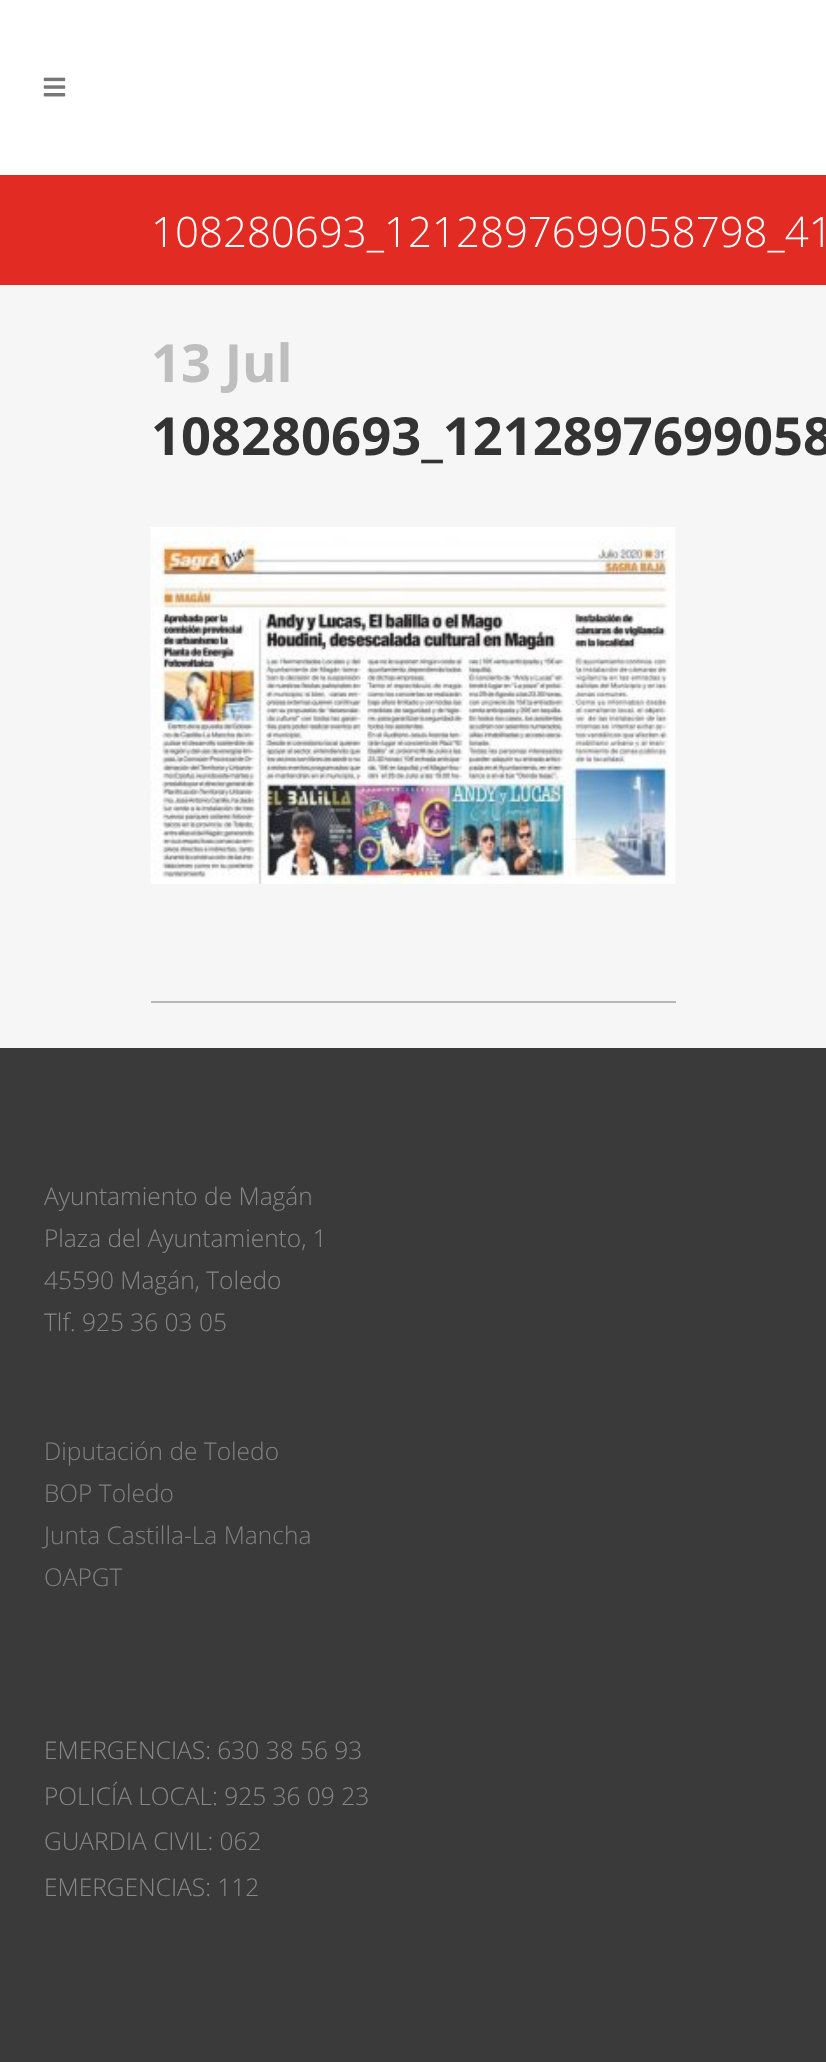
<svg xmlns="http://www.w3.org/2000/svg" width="826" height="2062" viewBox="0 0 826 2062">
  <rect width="100%" height="100%" fill="#ffffff"/>
  <image x="43" y="77" width="23" height="20" href="img1.png"/>
  <rect x="0" y="285" width="826" height="763" fill="#f6f6f6"/>
  <rect x="0" y="175" width="826" height="110" fill="#e12b23"/>
  <text x="151" y="247" font-family="Open Sans" font-size="42" font-weight="300" fill="#ffffff">108280693_1212897699058798_41</text>
  <rect x="151" y="1001" width="525" height="2" fill="#b7b7b7"/>
  <text x="151" y="382" font-family="Open Sans" font-size="52.5" font-weight="bold" fill="#bebebe">13 Jul</text>
  <text x="151" y="455" font-family="Open Sans" font-size="52.5" font-weight="bold" fill="#333333">108280693_1212897699058</text>
  <image x="150" y="527" width="526" height="357" href="img2.png"/>
  <rect x="0" y="1048" width="826" height="1014" fill="#3a3a3a"/>
  <text x="44" y="1205" font-family="Open Sans" font-size="24.5" font-weight="300" fill="#888888">Ayuntamiento de Magán</text>
  <text x="44" y="1247" font-family="Open Sans" font-size="24.5" font-weight="300" fill="#888888">Plaza del Ayuntamiento, 1</text>
  <text x="44" y="1289" font-family="Open Sans" font-size="24.5" font-weight="300" fill="#888888">45590 Magán, Toledo</text>
  <text x="44" y="1331" font-family="Open Sans" font-size="24.5" font-weight="300" fill="#888888">Tlf. 925 36 03 05</text>
  <text x="44" y="1460" font-family="Open Sans" font-size="24.5" font-weight="300" fill="#818181">Diputación de Toledo</text>
  <text x="44" y="1502" font-family="Open Sans" font-size="24.5" font-weight="300" fill="#818181">BOP Toledo</text>
  <text x="44" y="1544" font-family="Open Sans" font-size="24.5" font-weight="300" fill="#818181">Junta Castilla-La Mancha</text>
  <text x="44" y="1586" font-family="Open Sans" font-size="24.5" font-weight="300" fill="#818181">OAPGT</text>
  <text x="44" y="1759" font-family="Open Sans" font-size="24.5" font-weight="300" fill="#888888">EMERGENCIAS: 630 38 56 93</text>
  <text x="44" y="1805" font-family="Open Sans" font-size="24.5" font-weight="300" fill="#888888">POLICÍA LOCAL: 925 36 09 23</text>
  <text x="44" y="1850" font-family="Open Sans" font-size="24.5" font-weight="300" fill="#888888">GUARDIA CIVIL: 062</text>
  <text x="44" y="1896" font-family="Open Sans" font-size="24.5" font-weight="300" fill="#888888">EMERGENCIAS: 112</text>
</svg>
